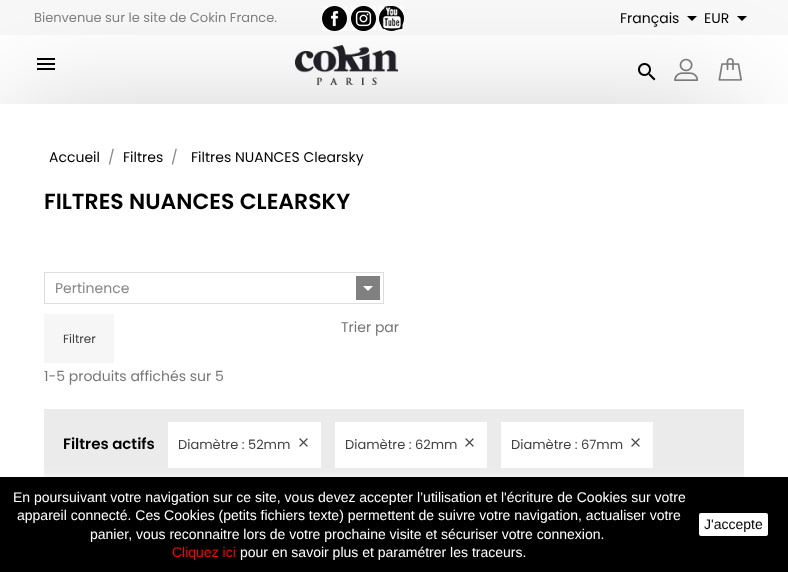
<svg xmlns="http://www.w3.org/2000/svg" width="788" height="572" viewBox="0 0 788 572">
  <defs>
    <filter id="blur1" x="-50%" y="-200%" width="200%" height="500%"><feGaussianBlur stdDeviation="60"/></filter>
    <filter id="blur2" x="-50%" y="-200%" width="200%" height="500%"><feGaussianBlur stdDeviation="5"/></filter>
  </defs>
  <rect width="100%" height="100%" fill="#ffffff"/>
  <rect x="0" y="0" width="788" height="35" fill="#f8f8f8"/>
  <rect x="10" y="114" width="728" height="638" fill="#000000" fill-opacity="0.2" filter="url(#blur1)"/>
  <text x="34" y="22" font-family="Poppins" font-size="13" fill="#808080">Bienvenue sur le site de Cokin France.</text>
  <image x="322" y="6" width="25" height="25" href="img1.png"/>
  <image x="351" y="6" width="25" height="25" href="img2.png"/>
  <image x="379" y="6" width="25" height="25" href="img3.png"/>
  <text x="620" y="23" font-family="Poppins" font-size="14" fill="#000000">Français</text>
  <path d="M687 16H697L692 21Z" fill="#000000"/>
  <text x="704" y="23" font-family="Poppins" font-size="14" fill="#000000">EUR</text>
  <path d="M737 16H747L742 21Z" fill="#000000"/>
  <image x="37" y="58" width="18" height="12" href="img4.png"/>
  <image x="295" y="45" width="103" height="40" href="img5.png"/>
  <image x="638" y="63" width="18" height="18" href="img6.png"/>
  <image x="674" y="58" width="24" height="23" href="img7.png"/>
  <image x="718" y="58" width="24" height="23" href="img8.png"/>
  <rect x="0" y="104" width="788" height="373" fill="#ffffff"/>
  <text x="49" y="162" font-family="Poppins" font-size="14" fill="#000000">Accueil</text>
  <text x="108" y="162" font-family="Poppins" font-size="14" fill="#878787">/</text>
  <text x="123" y="162" font-family="Poppins" font-size="14" fill="#000000">Filtres</text>
  <text x="171" y="162" font-family="Poppins" font-size="14" fill="#878787">/</text>
  <text x="191" y="162" font-family="Poppins" font-size="14" fill="#000000">Filtres NUANCES Clearsky</text>
  <text x="44" y="209" font-family="Poppins" font-size="22" font-weight="600" fill="#000000">FILTRES NUANCES CLEARSKY</text>
  <rect x="44.5" y="272.5" width="339" height="31" fill="none" stroke="#dddddd"/>
  <text x="55" y="293" font-family="Poppins" font-size="14" fill="#878787">Pertinence</text>
  <rect x="356" y="276" width="24" height="24" fill="#808080"/>
  <path d="M363 286H373L368 291Z" fill="#ffffff"/>
  <text x="341" y="332" font-family="Poppins" font-size="14" fill="#777777">Trier par</text>
  <rect x="44" y="314" width="70" height="49" fill="#f6f6f6"/>
  <text x="63" y="343" font-family="Poppins" font-size="12" fill="#414141">Filtrer</text>
  <text x="44" y="381" font-family="Poppins" font-size="14" fill="#777777">1-5 produits affichés sur 5</text>
  <rect x="44" y="409" width="700" height="68" fill="#ebebeb"/>
  <text x="63" y="449" font-family="Poppins" font-size="15" font-weight="600" fill="#000000">Filtres actifs</text>
  <rect x="168" y="422" width="153" height="46" fill="#ffffff"/>
  <text x="178" y="449" font-family="Poppins" font-size="13" fill="#414141">Diamètre : 52mm</text>
  <image x="299" y="438" width="9" height="9" href="img9.png"/>
  <rect x="335" y="422" width="152" height="46" fill="#ffffff"/>
  <text x="345" y="449" font-family="Poppins" font-size="13" fill="#414141">Diamètre : 62mm</text>
  <image x="465" y="438" width="9" height="9" href="img9.png"/>
  <rect x="501" y="422" width="152" height="46" fill="#ffffff"/>
  <text x="511" y="449" font-family="Poppins" font-size="13" fill="#414141">Diamètre : 67mm</text>
  <image x="631" y="438" width="9" height="9" href="img9.png"/>
  <rect x="0" y="477" width="788" height="95" fill="#ffffff" filter="url(#blur2)"/>
  <rect x="0" y="477" width="788" height="95" fill="#000000"/>
  <text x="13" y="502" font-family="Liberation Sans" font-size="14" fill="#ffffff">En poursuivant votre navigation sur ce site, vous devez accepter l’utilisation et l'écriture de Cookies sur votre</text>
  <text x="17" y="520" font-family="Liberation Sans" font-size="14" fill="#ffffff">appareil connecté. Ces Cookies (petits fichiers texte) permettent de suivre votre navigation, actualiser votre</text>
  <text x="90" y="539" font-family="Liberation Sans" font-size="14" fill="#ffffff">panier, vous reconnaitre lors de votre prochaine visite et sécuriser votre connexion.</text>
  <text x="172" y="557" font-family="Liberation Sans" font-size="14" fill="#f80303">Cliquez ici</text>
  <text x="240" y="557" font-family="Liberation Sans" font-size="14" fill="#ffffff">pour en savoir plus et paramétrer les traceurs.</text>
  <rect x="699" y="513" width="69" height="23" rx="2" fill="#ffffff"/>
  <text x="704" y="529" font-family="Liberation Sans" font-size="14" fill="#000000">J'accepte</text>
</svg>
